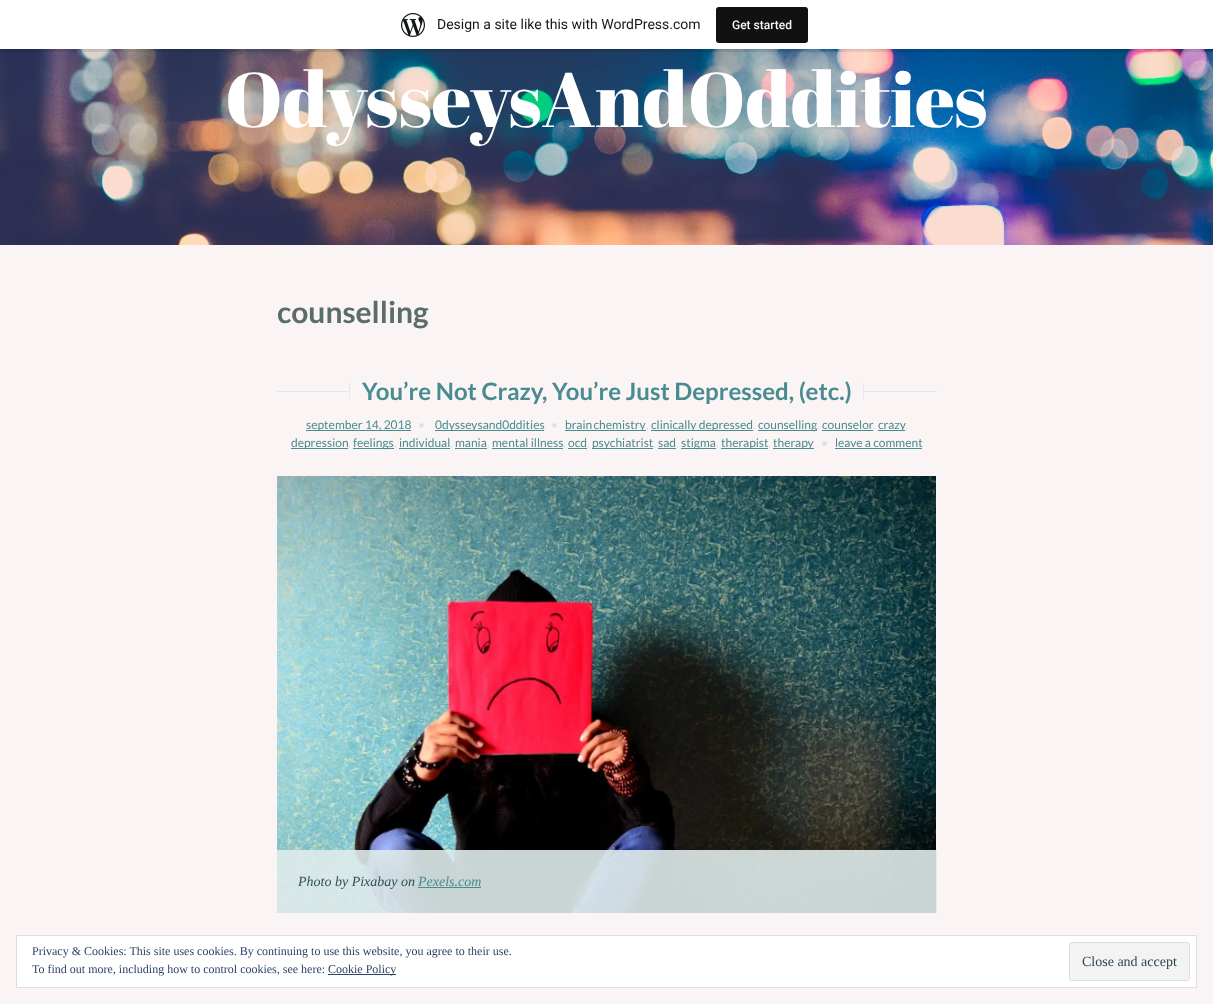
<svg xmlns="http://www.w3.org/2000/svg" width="1213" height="1004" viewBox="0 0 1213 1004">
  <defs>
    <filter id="blur1" x="-50%" y="-200%" width="200%" height="500%"><feGaussianBlur stdDeviation="1"/></filter>
  </defs>
  <rect width="100%" height="100%" fill="#faf4f4"/>
  <image x="0" y="49" width="1213" height="196" href="img2.png"/>
  <rect x="0" y="1" width="1213" height="49" fill="#000000" fill-opacity="0.05" filter="url(#blur1)"/>
  <path d="M1 49V52H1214V3H1213V49Z" fill="#000000" fill-opacity="0.08"/>
  <rect x="0" y="0" width="1213" height="49" fill="#ffffff"/>
  <image x="401" y="13" width="24" height="24" href="img1.png"/>
  <text x="437" y="29" font-family="Roboto" font-size="14" fill="#171717">Design a site like this with WordPress.com</text>
  <rect x="716" y="7" width="92" height="36" rx="3" fill="#111111"/>
  <text x="732" y="29" font-family="Roboto" font-size="12" font-weight="500" fill="#f6f7f7">Get started</text>
  <text x="225" y="127" font-family="Abril Fatface" font-size="77" fill="#ffffff">OdysseysAndOddities</text>
  <text x="277" y="323" font-family="Lato" font-size="30" font-weight="bold" fill="#5a6c6c">counselling</text>
  <rect x="277" y="391" width="660" height="1" fill="#e2e7ea"/>
  <rect x="350" y="391" width="513" height="1" fill="#faf4f4"/>
  <rect x="349" y="377" width="1" height="28" fill="#e2e7ea"/>
  <rect x="349" y="377" width="1" height="6" fill="#faf4f4"/>
  <rect x="349" y="399" width="1" height="6" fill="#faf4f4"/>
  <text x="362" y="400" font-family="Lato" font-size="24" font-weight="bold" fill="#488c91">You’re Not Crazy, You’re Just Depressed, (etc.)</text>
  <rect x="863" y="377" width="1" height="28" fill="#e2e7ea"/>
  <rect x="863" y="377" width="1" height="6" fill="#faf4f4"/>
  <rect x="863" y="399" width="1" height="6" fill="#faf4f4"/>
  <rect x="306" y="430" width="105" height="1" fill="#488c91"/>
  <text x="306" y="429" font-family="Lato" font-size="12" fill="#488c91">september 14, 2018</text>
  <text x="418" y="429" font-family="Lato" font-size="12" fill="#d2e5e3">•</text>
  <rect x="435" y="430" width="109" height="1" fill="#488c91"/>
  <text x="435" y="429" font-family="Lato" font-size="12" fill="#488c91">0dysseysand0ddities</text>
  <text x="551" y="429" font-family="Lato" font-size="12" fill="#d2e5e3">•</text>
  <rect x="565" y="430" width="81" height="1" fill="#488c91"/>
  <text x="565" y="429" word-spacing="-1" font-family="Lato" font-size="12" fill="#488c91">brain chemistry</text>
  <rect x="651" y="430" width="102" height="1" fill="#488c91"/>
  <text x="651" y="429" font-family="Lato" font-size="12" fill="#488c91">clinically depressed</text>
  <rect x="758" y="430" width="59" height="1" fill="#488c91"/>
  <text x="758" y="429" font-family="Lato" font-size="12" fill="#488c91">counselling</text>
  <text x="822" y="429" font-family="Lato" font-size="12" fill="#488c91">counselor</text>
  <rect x="878" y="430" width="27" height="1" fill="#488c91"/>
  <text x="878" y="429" font-family="Lato" font-size="12" fill="#488c91">crazy</text>
  <text x="646" y="429" font-family="Lato" font-size="12" fill="#d2e5e3">,</text>
  <text x="753" y="429" font-family="Lato" font-size="12" fill="#d2e5e3">,</text>
  <text x="817" y="429" font-family="Lato" font-size="12" fill="#d2e5e3">,</text>
  <text x="873" y="429" font-family="Lato" font-size="12" fill="#d2e5e3">,</text>
  <rect x="822" y="430" width="51" height="1" fill="#488c91"/>
  <text x="905" y="429" font-family="Lato" font-size="12" fill="#d2e5e3">,</text>
  <rect x="291" y="448" width="57" height="1" fill="#488c91"/>
  <text x="291" y="447" font-family="Lato" font-size="12" fill="#488c91">depression</text>
  <rect x="353" y="448" width="41" height="1" fill="#488c91"/>
  <text x="353" y="447" font-family="Lato" font-size="12" fill="#488c91">feelings</text>
  <text x="399" y="447" font-family="Lato" font-size="12" fill="#488c91">individual</text>
  <text x="455" y="447" font-family="Lato" font-size="12" fill="#488c91">mania</text>
  <text x="492" y="447" font-family="Lato" font-size="12" fill="#488c91">mental illness</text>
  <text x="568" y="447" font-family="Lato" font-size="12" fill="#488c91">ocd</text>
  <rect x="592" y="448" width="61" height="1" fill="#488c91"/>
  <text x="592" y="447" font-family="Lato" font-size="12" fill="#488c91">psychiatrist</text>
  <text x="658" y="447" font-family="Lato" font-size="12" fill="#488c91">sad</text>
  <rect x="681" y="448" width="35" height="1" fill="#488c91"/>
  <text x="681" y="447" font-family="Lato" font-size="12" fill="#488c91">stigma</text>
  <rect x="721" y="448" width="47" height="1" fill="#488c91"/>
  <text x="721" y="447" font-family="Lato" font-size="12" fill="#488c91">therapist</text>
  <rect x="773" y="448" width="41" height="1" fill="#488c91"/>
  <text x="773" y="447" font-family="Lato" font-size="12" fill="#488c91">therapy</text>
  <text x="821" y="447" font-family="Lato" font-size="12" fill="#d2e5e3">•</text>
  <text x="835" y="447" font-family="Lato" font-size="12" fill="#488c91">leave a comment</text>
  <rect x="835" y="448" width="87" height="1" fill="#488c91"/>
  <text x="348" y="447" font-family="Lato" font-size="12" fill="#d2e5e3">,</text>
  <text x="394" y="447" font-family="Lato" font-size="12" fill="#d2e5e3">,</text>
  <text x="450" y="447" font-family="Lato" font-size="12" fill="#d2e5e3">,</text>
  <rect x="399" y="448" width="51" height="1" fill="#488c91"/>
  <text x="487" y="447" font-family="Lato" font-size="12" fill="#d2e5e3">,</text>
  <rect x="455" y="448" width="32" height="1" fill="#488c91"/>
  <text x="563" y="447" font-family="Lato" font-size="12" fill="#d2e5e3">,</text>
  <rect x="492" y="448" width="71" height="1" fill="#488c91"/>
  <text x="587" y="447" font-family="Lato" font-size="12" fill="#d2e5e3">,</text>
  <rect x="568" y="448" width="19" height="1" fill="#488c91"/>
  <text x="653" y="447" font-family="Lato" font-size="12" fill="#d2e5e3">,</text>
  <text x="676" y="447" font-family="Lato" font-size="12" fill="#d2e5e3">,</text>
  <rect x="658" y="448" width="18" height="1" fill="#488c91"/>
  <text x="716" y="447" font-family="Lato" font-size="12" fill="#d2e5e3">,</text>
  <text x="768" y="447" font-family="Lato" font-size="12" fill="#d2e5e3">,</text>
  <image x="277" y="476" width="659" height="437" href="img3.png"/>
  <rect x="277" y="850" width="660" height="63" fill="#dfebeb" fill-opacity="0.9"/>
  <text x="298" y="886" font-family="Liberation Serif" font-size="14" font-style="italic" fill="#345151">Photo by Pixabay on</text>
  <text x="418" y="886" font-family="Liberation Serif" font-size="14" font-style="italic" fill="#488c91">Pexels.com</text>
  <rect x="418" y="887" width="63" height="1" fill="#488c91"/>
  <rect x="16.5" y="935.5" width="1180" height="52" fill="#ffffff" stroke="#dedede"/>
  <text x="32" y="955" font-family="Liberation Serif" font-size="12" fill="#2e4467">Privacy &amp; Cookies: This site uses cookies. By continuing to use this website, you agree to their use.</text>
  <text x="32" y="973" font-family="Liberation Serif" font-size="12" fill="#2e4467">To find out more, including how to control cookies, see here:</text>
  <rect x="328" y="974" width="68" height="1" fill="#2e4467"/>
  <text x="328" y="973" font-family="Liberation Serif" font-size="12" fill="#2e4467">Cookie Policy</text>
  <rect x="1069.5" y="942.5" width="120" height="38" rx="2.5" fill="#f3f3f3" stroke="#dedede"/>
  <text x="1082" y="966" font-family="Liberation Serif" font-size="14" fill="#2e4453">Close and accept</text>
</svg>
